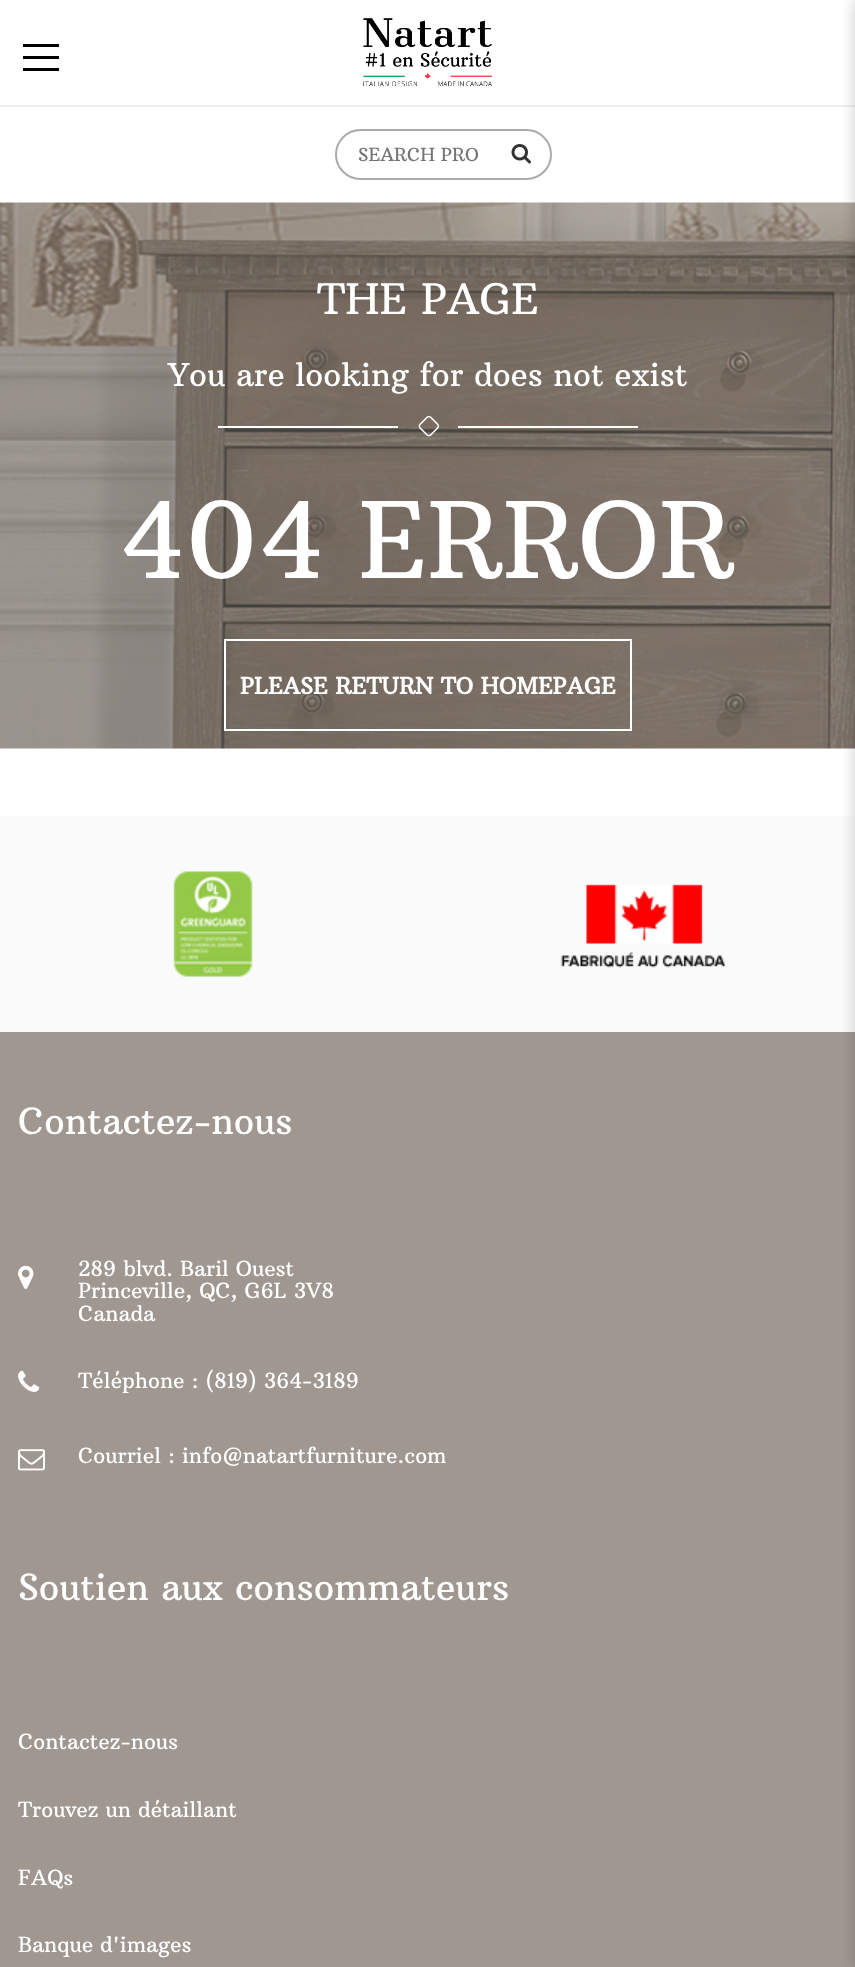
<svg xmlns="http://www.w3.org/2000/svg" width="855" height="1967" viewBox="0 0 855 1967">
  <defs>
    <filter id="blur1" x="-50%" y="-200%" width="200%" height="500%"><feGaussianBlur stdDeviation="7.5"/></filter>
  </defs>
  <rect width="100%" height="100%" fill="#ffffff"/>
  <rect x="0" y="105" width="855" height="2" fill="#eeeeee"/>
  <rect x="23" y="44" width="36" height="3" fill="#000000"/>
  <rect x="23" y="56" width="36" height="3" fill="#000000"/>
  <rect x="23" y="68" width="36" height="3" fill="#000000"/>
  <image x="363" y="18" width="129" height="69" href="img1.png"/>
  <rect x="336" y="130" width="215" height="49" rx="24.5" fill="none" stroke="#ababab" stroke-width="2"/>
  <text x="358" y="161" font-family="Arbutus Slab" font-size="18" fill="#757575">SEARCH PRO</text>
  <image x="511" y="144" width="20" height="20" href="img2.png"/>
  <image x="0" y="202" width="855" height="547" href="img3.png"/>
  <text x="317" y="314" font-family="Arbutus Slab" font-size="42" fill="#ffffff">THE PAGE</text>
  <text x="168" y="386" font-family="Arbutus Slab" font-size="31.5" fill="#ffffff">You are looking for does not exist</text>
  <rect x="218" y="426" width="180" height="2" fill="#ffffff"/>
  <image x="418" y="415" width="22" height="22" href="img4.png"/>
  <rect x="458" y="426" width="180" height="2" fill="#ffffff"/>
  <text x="120" y="578" font-family="Arbutus Slab" font-size="105" fill="#ffffff">404 ERROR</text>
  <rect x="225" y="640" width="406" height="90" fill="none" stroke="#ffffff" stroke-width="2"/>
  <text x="240" y="694" font-family="Arbutus Slab" font-size="22.5" font-weight="bold" fill="#ffffff">PLEASE RETURN TO HOMEPAGE</text>
  <rect x="0" y="816" width="855" height="216" fill="#fafafa"/>
  <image x="173" y="871" width="80" height="106" href="img5.png"/>
  <image x="560" y="884" width="166" height="84" href="img6.png"/>
  <rect x="0" y="1032" width="855" height="935" fill="#a09790"/>
  <text x="18" y="1134" font-family="Arbutus Slab" font-size="36" fill="#ffffff">Contactez-nous</text>
  <image x="18" y="1265" width="16" height="24" href="img7.png"/>
  <text x="78" y="1276" font-family="Arbutus Slab" font-size="21" fill="#ffffff">289 blvd. Baril Ouest</text>
  <text x="78" y="1298" font-family="Arbutus Slab" font-size="21" fill="#ffffff">Princeville, QC, G6L 3V8</text>
  <text x="78" y="1321" font-family="Arbutus Slab" font-size="21" fill="#ffffff">Canada</text>
  <image x="18" y="1370" width="22" height="22" href="img8.png"/>
  <text x="78" y="1388" font-family="Arbutus Slab" font-size="21" fill="#ffffff">Téléphone : (819) 364-3189</text>
  <image x="18" y="1449" width="27" height="22" href="img9.png"/>
  <text x="78" y="1463" font-family="Arbutus Slab" font-size="21" fill="#ffffff">Courriel : info@natartfurniture.com</text>
  <text x="18" y="1600" font-family="Arbutus Slab" font-size="36" fill="#ffffff">Soutien aux consommateurs</text>
  <text x="18" y="1749" font-family="Arbutus Slab" font-size="21" fill="#ffffff">Contactez-nous</text>
  <text x="18" y="1817" font-family="Arbutus Slab" font-size="21" fill="#ffffff">Trouvez un détaillant</text>
  <text x="18" y="1885" font-family="Arbutus Slab" font-size="21" fill="#ffffff">FAQs</text>
  <text x="18" y="1952" font-family="Arbutus Slab" font-size="21" fill="#ffffff">Banque d'images</text>
  <rect x="855" y="0" width="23" height="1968" fill="#000000" fill-opacity="0.2" filter="url(#blur1)"/>
</svg>
